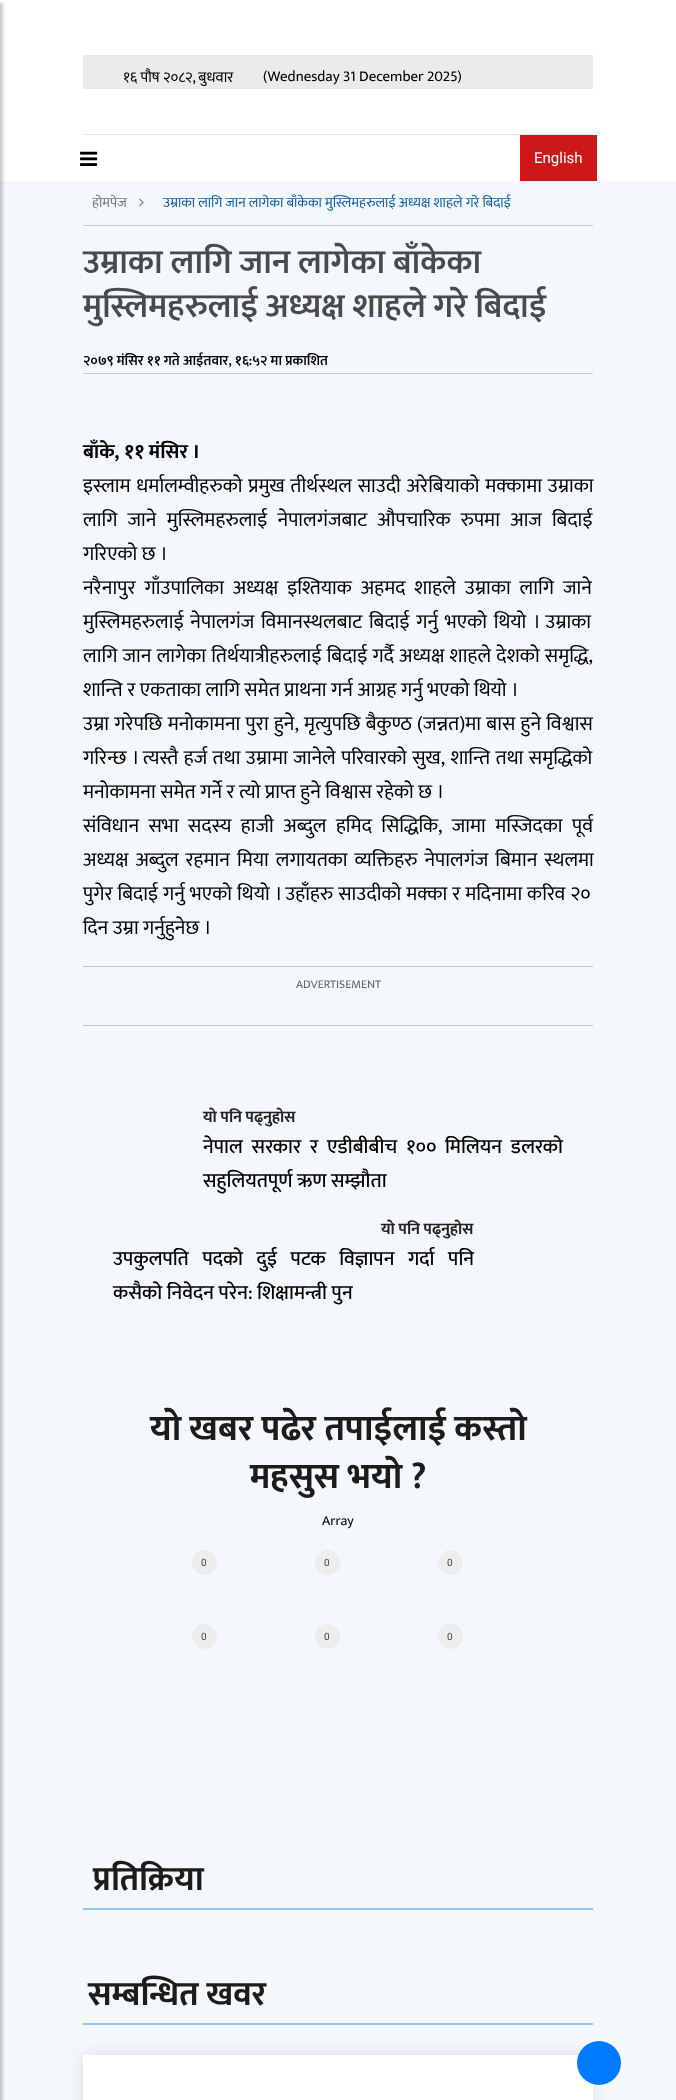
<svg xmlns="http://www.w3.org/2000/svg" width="676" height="2100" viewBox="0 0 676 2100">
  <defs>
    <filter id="blur1" x="-50%" y="-200%" width="200%" height="500%"><feGaussianBlur stdDeviation="1.5"/></filter>
    <filter id="blur2" x="-50%" y="-200%" width="200%" height="500%"><feGaussianBlur stdDeviation="8"/></filter>
  </defs>
  <rect width="100%" height="100%" fill="#f4f8fb"/>
  <rect x="0" y="0" width="676" height="181" fill="#ffffff"/>
  <rect x="-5" y="3" width="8" height="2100" fill="#000000" fill-opacity="0.2" filter="url(#blur1)"/>
  <rect x="83" y="55" width="510" height="34" fill="#ebebeb"/>
  <image x="124" y="68" width="110" height="18" href="img1.png"/>
  <text x="263" y="81" font-family="Ek Mukta" font-size="15" fill="#000000">(Wednesday 31 December 2025)</text>
  <rect x="83" y="134" width="510" height="1" fill="#e6e6e6"/>
  <image x="80" y="151" width="18" height="15" href="img2.png"/>
  <rect x="520" y="135" width="77" height="46" fill="#ce1719"/>
  <text x="534" y="163" font-family="Roboto" font-size="15" fill="#ffffff">English</text>
  <text x="92" y="207" font-family="Ek Mukta" font-size="14" fill="#777777">होमपेज</text>
  <image x="139" y="198" width="5" height="9" href="img3.png"/>
  <text x="163" y="207" font-family="Ek Mukta" font-size="14" fill="#0e5dae">उम्राका लागि जान लागेका बाँकेका मुस्लिमहरुलाई अध्यक्ष शाहले गरे बिदाई</text>
  <rect x="83" y="225" width="510" height="1" fill="#cccccc"/>
  <text x="83" y="273" font-family="Ek Mukta" font-size="34" font-weight="600" fill="#494a4b">उम्राका लागि जान लागेका बाँकेका</text>
  <text x="83" y="317" font-family="Ek Mukta" font-size="34" font-weight="600" fill="#494a4b">मुस्लिमहरुलाई अध्यक्ष शाहले गरे बिदाई</text>
  <text x="83" y="365" font-family="Ek Mukta" font-size="14" font-weight="600" fill="#000000">२०७९ मंसिर ११ गते आईतवार, १६:५२ मा प्रकाशित</text>
  <rect x="83" y="373" width="510" height="1" fill="#cccccc"/>
  <text x="83" y="458" font-family="Ek Mukta" font-size="20" font-weight="bold" fill="#000000">बाँके, ११ मंसिर ।</text>
  <text x="83" y="492" word-spacing="1.25" font-family="Ek Mukta" font-size="20" fill="#000000">इस्लाम धर्मालम्वीहरुको प्रमुख तीर्थस्थल साउदी अरेबियाको मक्कामा उम्राका</text>
  <text x="83" y="526" word-spacing="5.75" font-family="Ek Mukta" font-size="20" fill="#000000">लागि जाने मुस्लिमहरुलाई नेपालगंजबाट औपचारिक रुपमा आज बिदाई</text>
  <text x="83" y="560" font-family="Ek Mukta" font-size="20" fill="#000000">गरिएको छ ।</text>
  <text x="83" y="594" word-spacing="4.5" font-family="Ek Mukta" font-size="20" fill="#000000">नरैनापुर गाँउपालिका अध्यक्ष इश्तियाक अहमद शाहले उम्राका लागि जाने</text>
  <text x="83" y="628" word-spacing="2.25" font-family="Ek Mukta" font-size="20" fill="#000000">मुस्लिमहरुलाई नेपालगंज विमानस्थलबाट बिदाई गर्नु भएको थियो । उम्राका</text>
  <text x="83" y="662" word-spacing="0.75" font-family="Ek Mukta" font-size="20" fill="#000000">लागि जान लागेका तिर्थयात्रीहरुलाई बिदाई गर्दै अध्यक्ष शाहले देशको समृद्धि,</text>
  <text x="83" y="696" font-family="Ek Mukta" font-size="20" fill="#000000">शान्ति र एकताका लागि समेत प्राथना गर्न आग्रह गर्नु भएको थियो ।</text>
  <text x="83" y="730" word-spacing="0.75" font-family="Ek Mukta" font-size="20" fill="#000000">उम्रा गरेपछि मनोकामना पुरा हुने, मृत्युपछि बैकुण्ठ (जन्नत)मा बास हुने विश्वास</text>
  <text x="83" y="764" word-spacing="1" font-family="Ek Mukta" font-size="20" fill="#000000">गरिन्छ । त्यस्तै हर्ज तथा उम्रामा जानेले परिवारको सुख, शान्ति तथा समृद्धिको</text>
  <text x="83" y="798" font-family="Ek Mukta" font-size="20" fill="#000000">मनोकामना समेत गर्ने र त्यो प्राप्त हुने विश्वास रहेको छ ।</text>
  <text x="83" y="832" word-spacing="5" font-family="Ek Mukta" font-size="20" fill="#000000">संविधान सभा सदस्य हाजी अब्दुल हमिद सिद्धिकि, जामा मस्जिदका पूर्व</text>
  <text x="83" y="866" word-spacing="2.5" font-family="Ek Mukta" font-size="20" fill="#000000">अध्यक्ष अब्दुल रहमान मिया लगायतका व्यक्तिहरु नेपालगंज बिमान स्थलमा</text>
  <text x="83" y="900" word-spacing="0.5" font-family="Ek Mukta" font-size="20" fill="#000000">पुगेर बिदाई गर्नु भएको थियो । उहाँहरु साउदीको मक्का र मदिनामा करिव २०</text>
  <text x="83" y="934" font-family="Ek Mukta" font-size="20" fill="#000000">दिन उम्रा गर्नुहुनेछ ।</text>
  <rect x="83" y="966" width="510" height="1" fill="#c3c6c9"/>
  <rect x="83" y="1025" width="510" height="1" fill="#c3c6c9"/>
  <text x="296" y="988" font-family="Ek Mukta" font-size="12" fill="#666869">ADVERTISEMENT</text>
  <text x="203" y="1122" font-family="Ek Mukta" font-size="16" font-weight="bold" fill="#222222">यो पनि पढ्नुहोस</text>
  <text x="203" y="1153" word-spacing="4.25" font-family="Ek Mukta" font-size="20" font-weight="500" fill="#000000">नेपाल सरकार र एडीबीबीच १०० मिलियन डलरको</text>
  <text x="203" y="1187" font-family="Ek Mukta" font-size="20" font-weight="500" fill="#000000">सहुलियतपूर्ण ऋण सम्झौता</text>
  <text x="381" y="1234" font-family="Ek Mukta" font-size="16" font-weight="bold" fill="#222222">यो पनि पढ्नुहोस</text>
  <text x="113" y="1265" word-spacing="9" font-family="Ek Mukta" font-size="20" font-weight="500" fill="#000000">उपकुलपति पदको दुई पटक विज्ञापन गर्दा पनि</text>
  <text x="113" y="1299" font-family="Ek Mukta" font-size="20" font-weight="500" fill="#000000">कसैको निवेदन परेन: शिक्षामन्त्री पुन</text>
  <text x="150" y="1440" font-family="Ek Mukta" font-size="36" font-weight="bold" fill="#1c1c1c">यो खबर पढेर तपाईलाई कस्तो</text>
  <text x="250" y="1488" font-family="Ek Mukta" font-size="36" font-weight="bold" fill="#1c1c1c">महसुस भयो ?</text>
  <text x="322" y="1525" font-family="Ek Mukta" font-size="14" fill="#000000">Array</text>
  <circle cx="204.5" cy="1562.5" r="12.5" fill="#ededed"/>
  <text x="201" y="1566" font-family="Roboto" font-size="10" fill="#444444">0</text>
  <circle cx="327.5" cy="1562.5" r="12.5" fill="#ededed"/>
  <text x="324" y="1566" font-family="Roboto" font-size="10" fill="#444444">0</text>
  <circle cx="450.5" cy="1562.5" r="12.5" fill="#ededed"/>
  <text x="447" y="1566" font-family="Roboto" font-size="10" fill="#444444">0</text>
  <circle cx="204.5" cy="1636.5" r="12.5" fill="#ededed"/>
  <text x="201" y="1640" font-family="Roboto" font-size="10" fill="#444444">0</text>
  <circle cx="327.5" cy="1636.5" r="12.5" fill="#ededed"/>
  <text x="324" y="1640" font-family="Roboto" font-size="10" fill="#444444">0</text>
  <circle cx="450.5" cy="1636.5" r="12.5" fill="#ededed"/>
  <text x="447" y="1640" font-family="Roboto" font-size="10" fill="#444444">0</text>
  <rect x="83" y="1908" width="510" height="2" fill="#93c6f9"/>
  <text x="93" y="1890" font-family="Ek Mukta" font-size="34" font-weight="bold" fill="#1c1c1c">प्रतिक्रिया</text>
  <rect x="83" y="2023" width="510" height="2" fill="#93c6f9"/>
  <text x="88" y="2005" font-family="Ek Mukta" font-size="34" font-weight="bold" fill="#1c1c1c">सम्बन्धित खवर</text>
  <rect x="83" y="2055" width="510" height="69" fill="#000000" fill-opacity="0.1" filter="url(#blur2)"/>
  <rect x="83" y="2055" width="510" height="45" fill="#ffffff"/>
  <circle cx="599" cy="2063" r="22" fill="#007bff"/>
</svg>
